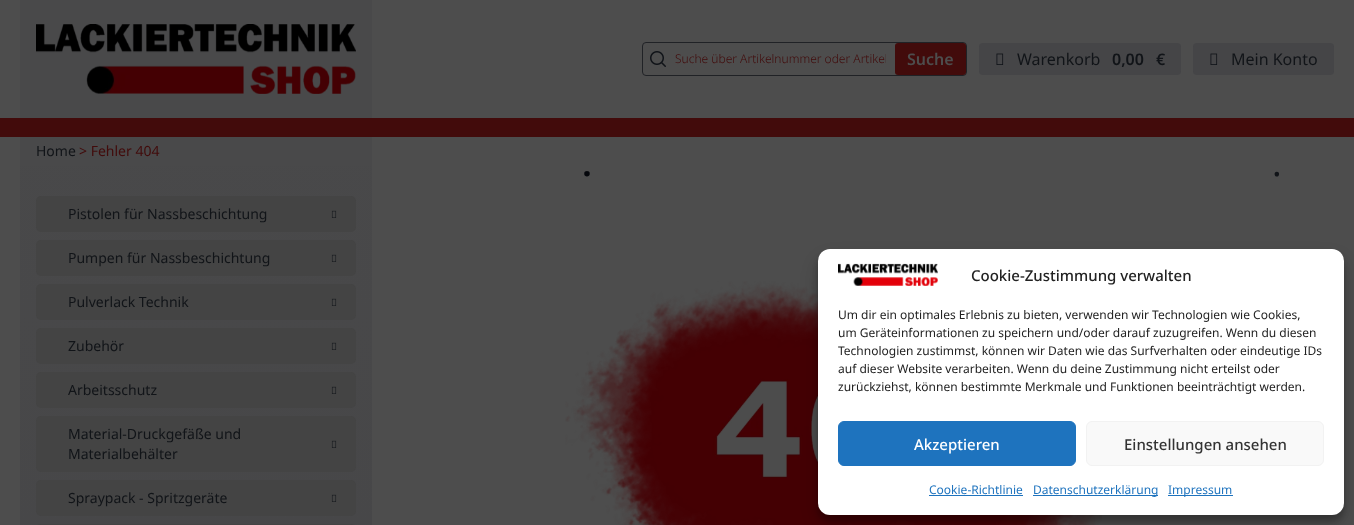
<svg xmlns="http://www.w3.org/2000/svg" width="1354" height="525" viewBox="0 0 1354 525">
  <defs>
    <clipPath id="clip1"><rect x="675" y="50" width="211" height="17"/></clipPath>
    <linearGradient id="g1" gradientUnits="userSpaceOnUse" x1="196" y1="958" x2="196" y2="95"><stop offset="0" stop-color="#454547"/><stop offset="1" stop-color="#49494a"/></linearGradient>
    <filter id="blur1" x="-50%" y="-200%" width="200%" height="500%"><feGaussianBlur stdDeviation="3"/></filter>
    <filter id="blur2" x="-50%" y="-200%" width="200%" height="500%"><feGaussianBlur stdDeviation="10"/></filter>
  </defs>
  <rect width="100%" height="100%" fill="#4d4d4d"/>
  <rect x="20" y="0" width="352" height="118" fill="#49494a"/>
  <image x="36" y="24" width="320" height="70" href="img1.png"/>
  <rect x="20" y="137" width="352" height="29" fill="#49494a"/>
  <rect x="642.5" y="42.5" width="324" height="33" rx="3.5" fill="none" stroke="#202226"/>
  <image x="650" y="51" width="16" height="16" href="img2.png"/>
  <g clip-path="url(#clip1)">
    <text x="675" y="63" font-family="Noto Sans" font-size="12" font-weight="300" fill="#420b0b">Suche über Artikelnummer oder Artikel</text>
  </g>
  <rect x="895" y="43" width="71" height="32" rx="3" fill="#420b0b"/>
  <text x="907" y="65" font-family="Noto Sans" font-size="16" font-weight="600" fill="#4d4d4d">Suche</text>
  <rect x="979" y="43" width="202" height="32" rx="4" fill="#454547"/>
  <image x="996" y="53" width="8" height="12" href="img3.png"/>
  <text x="1017" y="65" font-family="Noto Sans" font-size="16" fill="#111418">Warenkorb</text>
  <text x="1112" y="65" font-family="Noto Sans" font-size="16" font-weight="600" fill="#111418">0,00</text>
  <text x="1156" y="65" font-family="Noto Sans" font-size="16" font-weight="600" fill="#111418">€</text>
  <rect x="1193" y="43" width="141" height="32" rx="4" fill="#454547"/>
  <image x="1210" y="53" width="8" height="12" href="img3.png"/>
  <text x="1231" y="65" font-family="Noto Sans" font-size="16" fill="#111418">Mein Konto</text>
  <rect x="0" y="118" width="1354" height="19" fill="#420b0b"/>
  <text x="36" y="156" font-family="Noto Sans" font-size="14" fill="#111418">Home</text>
  <text x="79" y="156" font-family="Noto Sans" font-size="14" fill="#420b0b">&gt; Fehler 404</text>
  <text x="582" y="176" font-family="Noto Sans" font-size="36" font-weight="600" fill="#05070c">.</text>
  <text x="1272" y="176" font-family="Noto Sans" font-size="36" fill="#111418">.</text>
  <image x="565" y="281" width="537" height="244" href="img4.png"/>
  <rect x="20" y="166" width="352" height="359" fill="url(#g1)"/>
  <rect x="36" y="196" width="320" height="36" rx="5" fill="#444444"/>
  <text x="68" y="219" font-family="Noto Sans" font-size="14" fill="#111418">Pistolen für Nassbeschichtung</text>
  <image x="331" y="210" width="6" height="8" href="img5.png"/>
  <rect x="36" y="240" width="320" height="36" rx="5" fill="#444444"/>
  <text x="68" y="263" font-family="Noto Sans" font-size="14" fill="#111418">Pumpen für Nassbeschichtung</text>
  <image x="331" y="254" width="6" height="8" href="img5.png"/>
  <rect x="36" y="284" width="320" height="36" rx="5" fill="#444444"/>
  <text x="68" y="307" font-family="Noto Sans" font-size="14" fill="#111418">Pulverlack Technik</text>
  <image x="331" y="298" width="6" height="8" href="img5.png"/>
  <rect x="36" y="328" width="320" height="36" rx="5" fill="#444444"/>
  <text x="68" y="351" font-family="Noto Sans" font-size="14" fill="#111418">Zubehör</text>
  <image x="331" y="342" width="6" height="8" href="img5.png"/>
  <rect x="36" y="372" width="320" height="36" rx="5" fill="#444444"/>
  <text x="68" y="395" font-family="Noto Sans" font-size="14" fill="#111418">Arbeitsschutz</text>
  <image x="331" y="386" width="6" height="8" href="img5.png"/>
  <rect x="36" y="416" width="320" height="56" rx="5" fill="#444444"/>
  <text x="68" y="439" font-family="Noto Sans" font-size="14" fill="#111418">Material-Druckgefäße und</text>
  <text x="68" y="459" font-family="Noto Sans" font-size="14" fill="#111418">Materialbehälter</text>
  <image x="331" y="440" width="6" height="8" href="img5.png"/>
  <rect x="36" y="480" width="320" height="36" rx="5" fill="#444444"/>
  <text x="68" y="503" font-family="Noto Sans" font-size="14" fill="#111418">Spraypack - Spritzgeräte</text>
  <image x="331" y="494" width="6" height="8" href="img5.png"/>
  <rect x="36" y="524" width="320" height="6" rx="5" fill="#444444"/>
  <rect x="818" y="255" width="526" height="266" rx="12" fill="#000000" fill-opacity="0.23" filter="url(#blur1)"/>
  <rect x="818" y="259" width="526" height="266" rx="12" fill="#000000" fill-opacity="0.19" filter="url(#blur2)"/>
  <rect x="818" y="249" width="526" height="266" rx="12" fill="#ffffff"/>
  <image x="838" y="263" width="100" height="23" href="img6.png"/>
  <text x="971" y="281" font-family="Noto Sans" font-size="15" font-weight="500" fill="#222222">Cookie-Zustimmung verwalten</text>
  <text x="838" y="319" font-family="Noto Sans" font-size="12" fill="#222222">Um dir ein optimales Erlebnis zu bieten, verwenden wir Technologien wie Cookies,</text>
  <text x="838" y="337" font-family="Noto Sans" font-size="12" fill="#222222">um Geräteinformationen zu speichern und/oder darauf zuzugreifen. Wenn du diesen</text>
  <text x="838" y="355" font-family="Noto Sans" font-size="12" fill="#222222">Technologien zustimmst, können wir Daten wie das Surfverhalten oder eindeutige IDs</text>
  <text x="838" y="373" font-family="Noto Sans" font-size="12" fill="#222222">auf dieser Website verarbeiten. Wenn du deine Zustimmung nicht erteilst oder</text>
  <text x="838" y="391" font-family="Noto Sans" font-size="12" fill="#222222">zurückziehst, können bestimmte Merkmale und Funktionen beeinträchtigt werden.</text>
  <rect x="838.5" y="421.5" width="237" height="44" rx="5.5" fill="#1e73be" stroke="#1e73be"/>
  <text x="914" y="450" font-family="Noto Sans" font-size="15" font-weight="500" fill="#ffffff">Akzeptieren</text>
  <rect x="1086.5" y="421.5" width="237" height="44" rx="5.5" fill="#f9f9f9" stroke="#f2f2f2"/>
  <text x="1124" y="450" font-family="Noto Sans" font-size="15" font-weight="500" fill="#333333">Einstellungen ansehen</text>
  <text x="929" y="494" font-family="Noto Sans" font-size="12" fill="#1e73be">Cookie-Richtlinie</text>
  <rect x="929" y="495" width="94" height="1" fill="#1e73be"/>
  <rect x="1033" y="495" width="125" height="1" fill="#1e73be"/>
  <text x="1033" y="494" font-family="Noto Sans" font-size="12" fill="#1e73be">Datenschutzerklärung</text>
  <rect x="1168" y="495" width="65" height="1" fill="#1e73be"/>
  <text x="1168" y="494" font-family="Noto Sans" font-size="12" fill="#1e73be">Impressum</text>
</svg>
